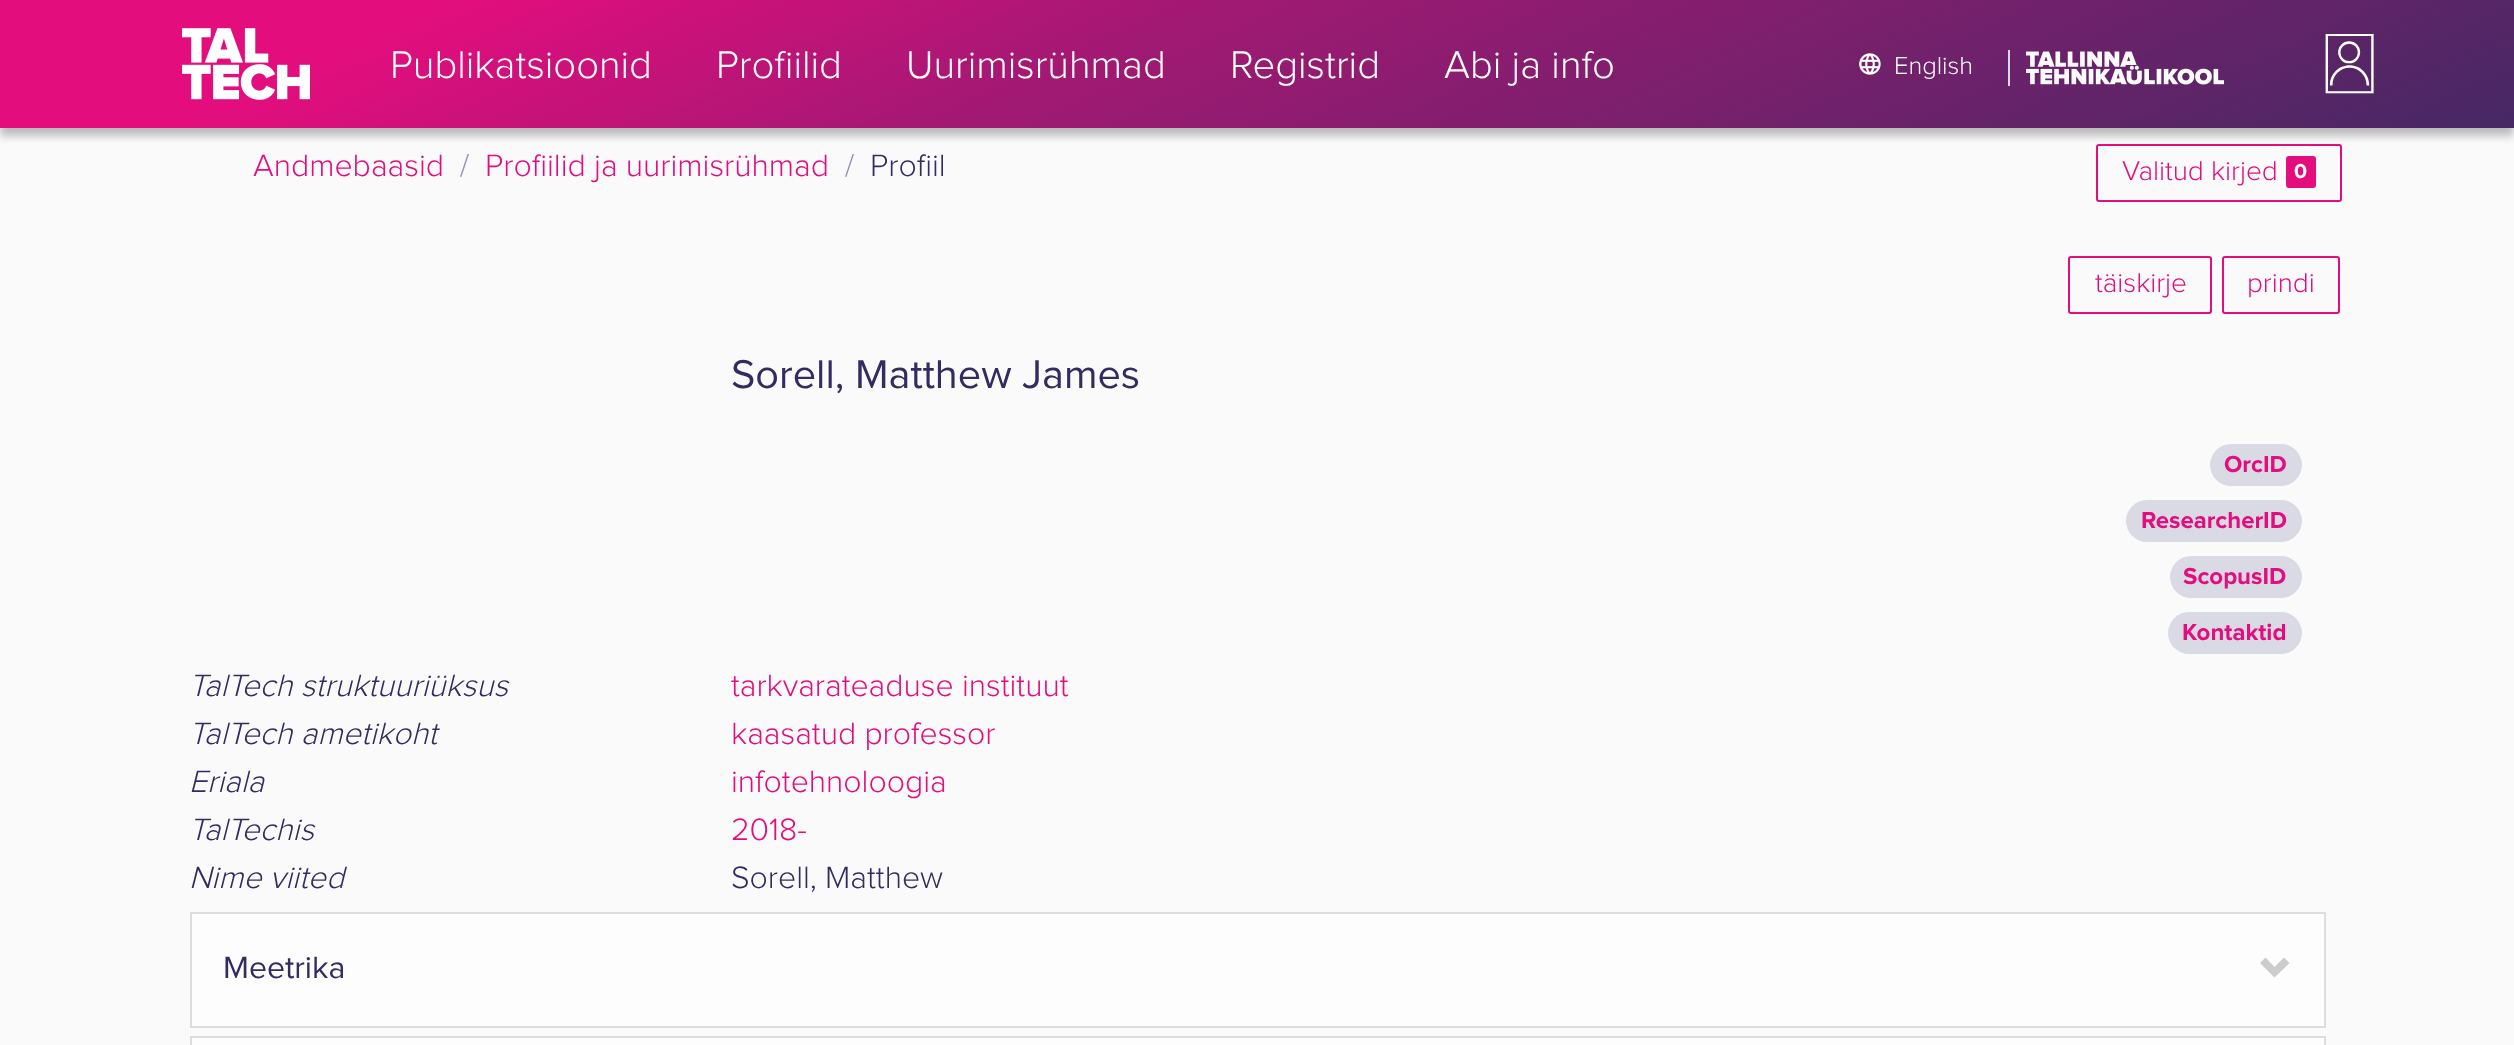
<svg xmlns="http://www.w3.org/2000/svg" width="2514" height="1045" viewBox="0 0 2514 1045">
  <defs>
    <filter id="blur1" x="-50%" y="-200%" width="200%" height="500%"><feGaussianBlur stdDeviation="4"/></filter>
    <linearGradient id="g1" gradientUnits="userSpaceOnUse" x1="1008" y1="-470" x2="1571" y2="737"><stop offset="0.14" stop-color="#e40d7e"/><stop offset="0.39" stop-color="#a11973"/><stop offset="0.84" stop-color="#4e2765"/><stop offset="1" stop-color="#342c61"/></linearGradient>
  </defs>
  <rect width="100%" height="100%" fill="#fbfafb"/>
  <rect x="0" y="8" width="2514" height="128" fill="#000000" fill-opacity="0.25" filter="url(#blur1)"/>
  <rect x="0" y="0" width="2514" height="128" fill="url(#g1)"/>
  <image x="182" y="28" width="128" height="72" href="img1.png"/>
  <text x="390" y="78" font-family="Proxima Nova" font-size="40" font-weight="300" fill="#ffffff">Publikatsioonid</text>
  <text x="716" y="78" font-family="Proxima Nova" font-size="40" font-weight="300" fill="#ffffff">Profiilid</text>
  <text x="906" y="78" font-family="Proxima Nova" font-size="40" font-weight="300" fill="#ffffff">Uurimisrühmad</text>
  <text x="1230" y="78" font-family="Proxima Nova" font-size="40" font-weight="300" fill="#ffffff">Registrid</text>
  <text x="1444" y="78" font-family="Proxima Nova" font-size="40" font-weight="300" fill="#ffffff">Abi ja info</text>
  <image x="1859" y="53" width="22" height="22" href="img2.png"/>
  <text x="1894" y="74" font-family="Proxima Nova" font-size="25.5" font-weight="300" fill="#ffffff">English</text>
  <rect x="2008" y="50" width="2" height="36" fill="#dadae4"/>
  <image x="2026" y="51" width="198" height="34" href="img3.png"/>
  <image x="2325" y="34" width="49" height="60" href="img4.png"/>
  <text x="253" y="176" font-family="Proxima Nova" font-size="32" font-weight="300" fill="#e40d7e">Andmebaasid</text>
  <text x="460" y="176" font-family="Proxima Nova" font-size="32" font-weight="300" fill="#9092ad">/</text>
  <text x="485" y="176" font-family="Proxima Nova" font-size="32" font-weight="300" fill="#e40d7e">Profiilid ja uurimisrühmad</text>
  <text x="845" y="176" font-family="Proxima Nova" font-size="32" font-weight="300" fill="#9092ad">/</text>
  <text x="870" y="176" font-family="Proxima Nova" font-size="32" font-weight="300" fill="#342c61">Profiil</text>
  <rect x="2097" y="145" width="244" height="56" rx="2" fill="none" stroke="#e40d7e" stroke-width="2"/>
  <text x="2122" y="180" font-family="Proxima Nova" font-size="28" font-weight="300" fill="#e40d7e">Valitud kirjed</text>
  <rect x="2286" y="156" width="30" height="32" rx="3" fill="#e40d7e"/>
  <text x="2294" y="178" font-family="Proxima Nova" font-size="21" font-weight="bold" fill="#ffffff">0</text>
  <rect x="2069" y="257" width="142" height="56" rx="2" fill="none" stroke="#e40d7e" stroke-width="2"/>
  <text x="2095" y="292" font-family="Proxima Nova" font-size="28" font-weight="300" fill="#e40d7e">täiskirje</text>
  <rect x="2223" y="257" width="116" height="56" rx="2" fill="none" stroke="#e40d7e" stroke-width="2"/>
  <text x="2247" y="292" font-family="Proxima Nova" font-size="28" font-weight="300" fill="#e40d7e">prindi</text>
  <text x="731" y="388" font-family="Proxima Nova" font-size="41.5" fill="#342c61">Sorell, Matthew James</text>
  <rect x="2210" y="444" width="92" height="42" rx="21" fill="#dadae4"/>
  <text x="2224" y="472" font-family="Proxima Nova" font-size="24" font-weight="bold" fill="#e40d7e">OrcID</text>
  <rect x="2126" y="500" width="176" height="42" rx="21" fill="#dadae4"/>
  <text x="2141" y="528" font-family="Proxima Nova" font-size="24" font-weight="bold" fill="#e40d7e">ResearcherID</text>
  <rect x="2170" y="556" width="132" height="42" rx="21" fill="#dadae4"/>
  <text x="2183" y="584" font-family="Proxima Nova" font-size="24" font-weight="bold" fill="#e40d7e">ScopusID</text>
  <rect x="2168" y="612" width="134" height="42" rx="21" fill="#dadae4"/>
  <text x="2182" y="640" font-family="Proxima Nova" font-size="24" font-weight="bold" fill="#e40d7e">Kontaktid</text>
  <text x="189" y="696" font-family="Proxima Nova" font-size="32" font-weight="300" font-style="italic" fill="#342c61">TalTech struktuuriüksus</text>
  <text x="731" y="696" font-family="Proxima Nova" font-size="32" font-weight="300" fill="#e40d7e">tarkvarateaduse instituut</text>
  <text x="189" y="744" font-family="Proxima Nova" font-size="32" font-weight="300" font-style="italic" fill="#342c61">TalTech ametikoht</text>
  <text x="731" y="744" font-family="Proxima Nova" font-size="32" font-weight="300" fill="#e40d7e">kaasatud professor</text>
  <text x="189" y="792" font-family="Proxima Nova" font-size="32" font-weight="300" font-style="italic" fill="#342c61">Eriala</text>
  <text x="731" y="792" font-family="Proxima Nova" font-size="32" font-weight="300" fill="#e40d7e">infotehnoloogia</text>
  <text x="189" y="840" font-family="Proxima Nova" font-size="32" font-weight="300" font-style="italic" fill="#342c61">TalTechis</text>
  <text x="731" y="840" font-family="Proxima Nova" font-size="32" font-weight="300" fill="#e40d7e">2018-</text>
  <text x="189" y="888" font-family="Proxima Nova" font-size="32" font-weight="300" font-style="italic" fill="#342c61">Nime viited</text>
  <text x="731" y="888" font-family="Proxima Nova" font-size="32" font-weight="300" fill="#342c61">Sorell, Matthew</text>
  <rect x="191" y="913" width="2134" height="114" fill="#fdfdfd" stroke="#dddddd" stroke-width="2"/>
  <text x="223" y="978" font-family="Proxima Nova" font-size="32" fill="#342c61">Meetrika</text>
  <path d="M2289.5 963L2274.5 977.5L2260 963L2265.5 957.5L2274.5 967L2284 957.5Z" fill="#cccccc"/>
  <rect x="191" y="1037" width="2134" height="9" fill="#fdfdfd" stroke="#dddddd" stroke-width="2"/>
</svg>
